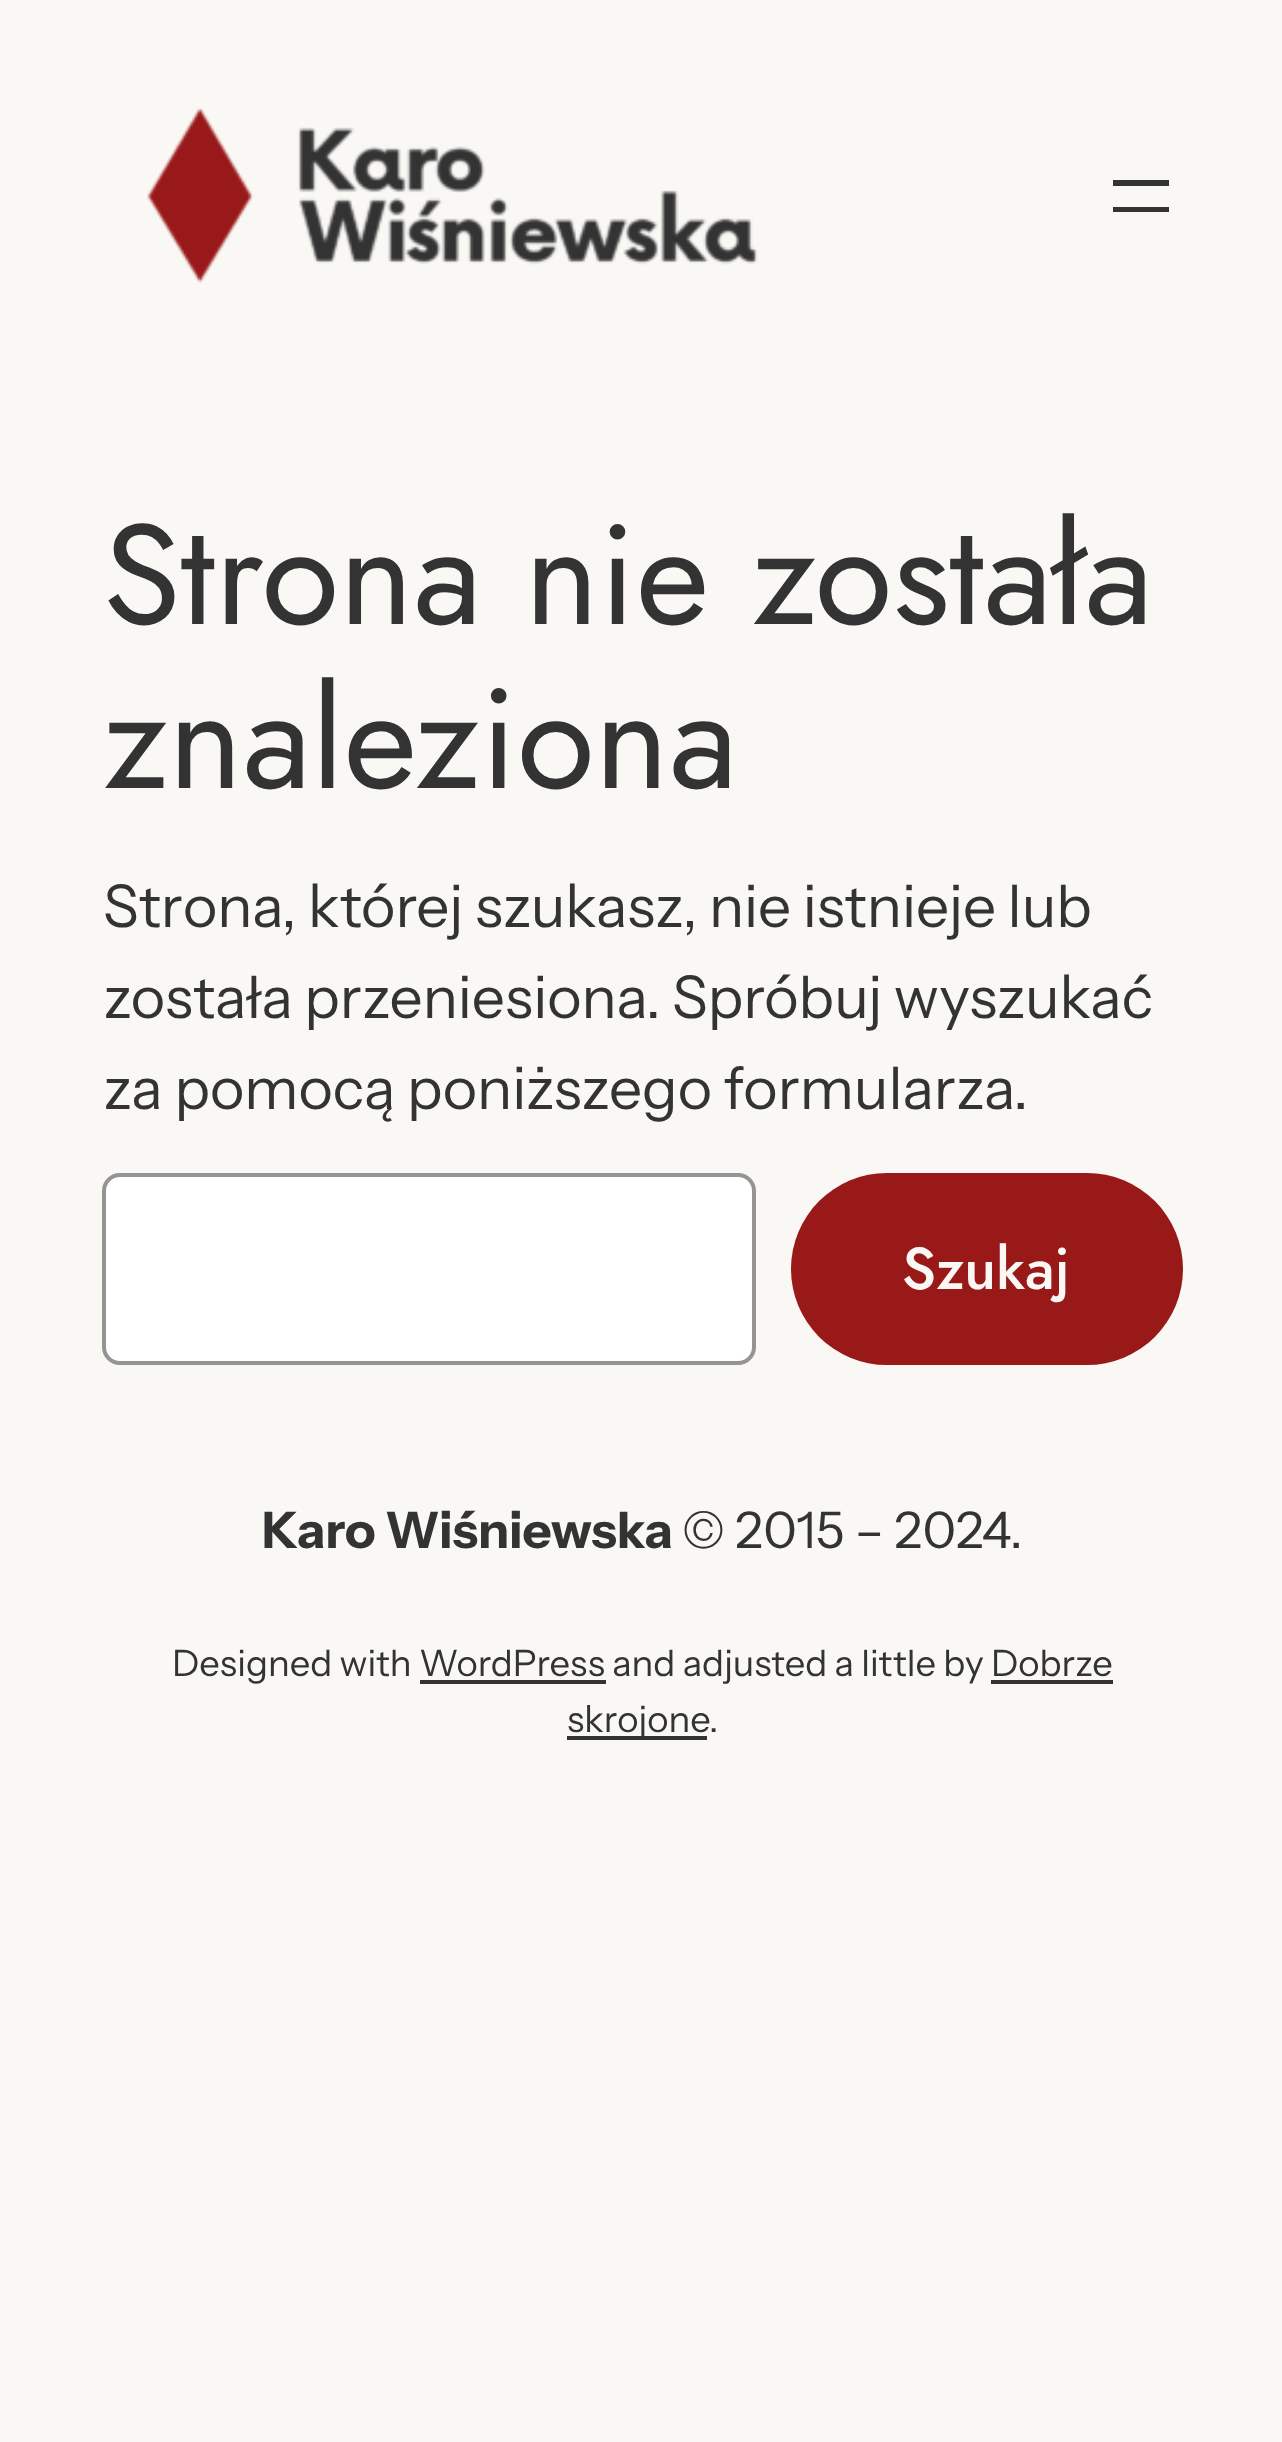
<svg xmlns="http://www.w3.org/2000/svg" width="1282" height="2442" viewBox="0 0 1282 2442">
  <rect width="100%" height="100%" fill="#f9f8f5"/>
  <image x="147" y="107" width="611" height="176" href="img1.png"/>
  <rect x="1113" y="180" width="56" height="6" fill="#333333"/>
  <rect x="1113" y="207" width="56" height="5" fill="#333333"/>
  <text x="103" y="624" font-family="Jost" font-size="142" fill="#333333">Strona nie została</text>
  <text x="103" y="788" font-family="Jost" font-size="142" fill="#333333">znaleziona</text>
  <text x="103" y="927" word-spacing="-0.25" font-family="Instrument Sans" font-size="58.75" fill="#333333">Strona, której szukasz, nie istnieje lub</text>
  <text x="103" y="1018" word-spacing="-0.5" font-family="Instrument Sans" font-size="58.75" fill="#333333">została przeniesiona. Spróbuj wyszukać</text>
  <text x="103" y="1109" font-family="Instrument Sans" font-size="58.75" fill="#333333">za pomocą poniższego formularza.</text>
  <rect x="104" y="1175" width="650" height="188" rx="16" fill="#ffffff" stroke="#949494" stroke-width="4"/>
  <rect x="791" y="1173" width="392" height="192" rx="96" fill="#991919"/>
  <text x="902" y="1289" font-family="Jost" font-size="58.75" font-weight="500" fill="#f9f8f5">Szukaj</text>
  <text x="262" y="1548" font-family="Instrument Sans" font-size="50.5" font-weight="bold" fill="#333333">Karo Wiśniewska</text>
  <text x="682" y="1548" font-family="Instrument Sans" font-size="50.5" fill="#333333">© 2015 – 2024.</text>
  <text x="172" y="1676" font-family="Instrument Sans" font-size="36.4" fill="#333333">Designed with WordPress and adjusted a little by</text>
  <text x="991" y="1676" font-family="Instrument Sans" font-size="36.4" fill="#333333">Dobrze</text>
  <rect x="991" y="1680" width="122" height="4" fill="#333333"/>
  <rect x="420" y="1680" width="186" height="4" fill="#333333"/>
  <rect x="567" y="1736" width="140" height="4" fill="#333333"/>
  <text x="567" y="1732" font-family="Instrument Sans" font-size="36.4" fill="#333333">skrojone</text>
  <text x="709" y="1732" font-family="Instrument Sans" font-size="36.4" fill="#333333">.</text>
</svg>
